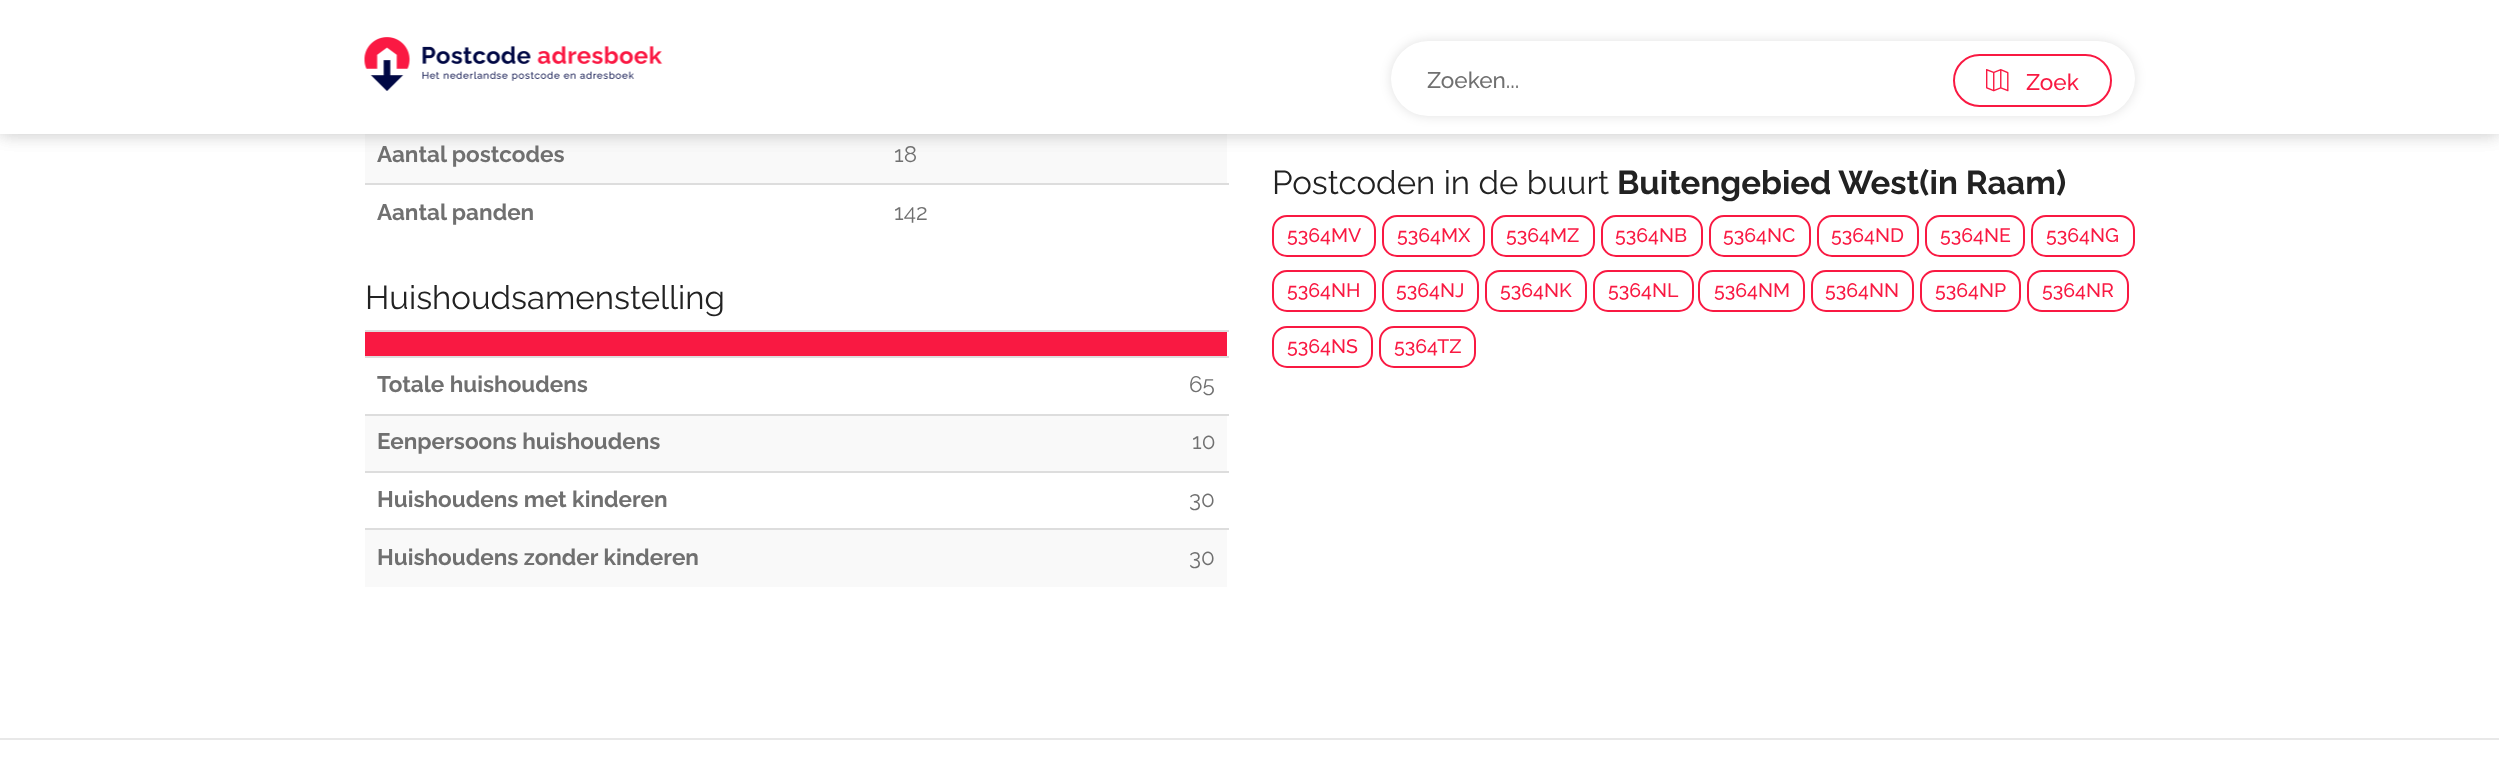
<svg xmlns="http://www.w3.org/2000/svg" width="2499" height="759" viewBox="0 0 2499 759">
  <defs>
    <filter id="blur1" x="-50%" y="-200%" width="200%" height="500%"><feGaussianBlur stdDeviation="9"/></filter>
    <filter id="blur2" x="-50%" y="-200%" width="200%" height="500%"><feGaussianBlur stdDeviation="6"/></filter>
  </defs>
  <rect width="100%" height="100%" fill="#ffffff"/>
  <rect x="365" y="134" width="862" height="49" fill="#f9f9f9"/>
  <rect x="0" y="0" width="2499" height="134" fill="#000000" fill-opacity="0.12" filter="url(#blur1)"/>
  <rect x="0" y="0" width="2499" height="134" fill="#000000" fill-opacity="0.12" filter="url(#blur1)"/>
  <rect x="0" y="0" width="2499" height="134" fill="#ffffff"/>
  <image x="364" y="37" width="299" height="54" href="img1.png"/>
  <rect x="1391" y="41" width="744" height="75" rx="37.5" fill="#000000" fill-opacity="0.12" filter="url(#blur2)"/>
  <rect x="1391" y="41" width="744" height="75" rx="37.5" fill="#ffffff"/>
  <text x="1427" y="88" font-family="Raleway" font-size="22.5" font-weight="500" fill="#707070">Zoeken...</text>
  <rect x="1954" y="55" width="157" height="51" rx="25.5" fill="none" stroke="#f91942" stroke-width="2"/>
  <image x="1986" y="69" width="23" height="23" href="img2.png"/>
  <text x="2026" y="90" font-family="Raleway" font-size="22.5" font-weight="500" fill="#f91942">Zoek</text>
  <text x="377" y="162" font-family="Raleway" font-size="22.5" font-weight="bold" fill="#707070">Aantal postcodes</text>
  <text x="894" y="162" font-family="Raleway" font-size="22.5" fill="#707070">18</text>
  <text x="377" y="220" font-family="Raleway" font-size="22.5" font-weight="bold" fill="#707070">Aantal panden</text>
  <rect x="365" y="183" width="864" height="2" fill="#dddddd"/>
  <text x="894" y="220" font-family="Raleway" font-size="22.5" fill="#707070">142</text>
  <text x="365" y="309" font-family="Raleway" font-size="33" fill="#222222">Huishoudsamenstelling</text>
  <rect x="365" y="332" width="862" height="24" fill="#f91942"/>
  <rect x="365" y="330" width="864" height="2" fill="#dddddd"/>
  <text x="377" y="392" font-family="Raleway" font-size="22.5" font-weight="bold" fill="#707070">Totale huishoudens</text>
  <rect x="365" y="356" width="864" height="2" fill="#dddddd"/>
  <text x="1189" y="392" font-family="Raleway" font-size="22.5" fill="#707070">65</text>
  <rect x="365" y="416" width="862" height="55" fill="#f9f9f9"/>
  <text x="377" y="449" font-family="Raleway" font-size="22.5" font-weight="bold" fill="#707070">Eenpersoons huishoudens</text>
  <rect x="365" y="414" width="864" height="2" fill="#dddddd"/>
  <text x="1192" y="449" font-family="Raleway" font-size="22.5" fill="#707070">10</text>
  <text x="377" y="507" font-family="Raleway" font-size="22.5" font-weight="bold" fill="#707070">Huishoudens met kinderen</text>
  <rect x="365" y="471" width="864" height="2" fill="#dddddd"/>
  <text x="1189" y="507" font-family="Raleway" font-size="22.5" fill="#707070">30</text>
  <rect x="365" y="530" width="862" height="57" fill="#f9f9f9"/>
  <text x="377" y="565" font-family="Raleway" font-size="22.5" font-weight="bold" fill="#707070">Huishoudens zonder kinderen</text>
  <rect x="365" y="528" width="864" height="2" fill="#dddddd"/>
  <text x="1189" y="565" font-family="Raleway" font-size="22.5" fill="#707070">30</text>
  <text x="1272" y="194" font-family="Raleway" font-size="33" fill="#222222">Postcoden in de buurt</text>
  <text x="1617" y="194" font-family="Raleway" font-size="33" font-weight="bold" fill="#222222">Buitengebied West(in Raam)</text>
  <rect x="1273" y="216" width="102" height="40" rx="14" fill="none" stroke="#f91942" stroke-width="2"/>
  <text x="1287" y="242" font-family="Raleway" font-size="19.5" font-weight="500" fill="#f91942">5364MV</text>
  <rect x="1383" y="216" width="101" height="40" rx="14" fill="none" stroke="#f91942" stroke-width="2"/>
  <text x="1397" y="242" font-family="Raleway" font-size="19.5" font-weight="500" fill="#f91942">5364MX</text>
  <rect x="1492" y="216" width="102" height="40" rx="14" fill="none" stroke="#f91942" stroke-width="2"/>
  <text x="1506" y="242" font-family="Raleway" font-size="19.5" font-weight="500" fill="#f91942">5364MZ</text>
  <rect x="1602" y="216" width="100" height="40" rx="14" fill="none" stroke="#f91942" stroke-width="2"/>
  <text x="1615" y="242" font-family="Raleway" font-size="19.5" font-weight="500" fill="#f91942">5364NB</text>
  <rect x="1710" y="216" width="100" height="40" rx="14" fill="none" stroke="#f91942" stroke-width="2"/>
  <text x="1723" y="242" font-family="Raleway" font-size="19.5" font-weight="500" fill="#f91942">5364NC</text>
  <rect x="1818" y="216" width="100" height="40" rx="14" fill="none" stroke="#f91942" stroke-width="2"/>
  <text x="1831" y="242" font-family="Raleway" font-size="19.5" font-weight="500" fill="#f91942">5364ND</text>
  <rect x="1926" y="216" width="98" height="40" rx="14" fill="none" stroke="#f91942" stroke-width="2"/>
  <text x="1940" y="242" font-family="Raleway" font-size="19.5" font-weight="500" fill="#f91942">5364NE</text>
  <rect x="2032" y="216" width="102" height="40" rx="14" fill="none" stroke="#f91942" stroke-width="2"/>
  <text x="2046" y="242" font-family="Raleway" font-size="19.5" font-weight="500" fill="#f91942">5364NG</text>
  <rect x="1273" y="271" width="102" height="40" rx="14" fill="none" stroke="#f91942" stroke-width="2"/>
  <text x="1287" y="297" font-family="Raleway" font-size="19.5" font-weight="500" fill="#f91942">5364NH</text>
  <rect x="1383" y="271" width="95" height="40" rx="14" fill="none" stroke="#f91942" stroke-width="2"/>
  <text x="1396" y="297" font-family="Raleway" font-size="19.5" font-weight="500" fill="#f91942">5364NJ</text>
  <rect x="1486" y="271" width="100" height="40" rx="14" fill="none" stroke="#f91942" stroke-width="2"/>
  <text x="1500" y="297" font-family="Raleway" font-size="19.5" font-weight="500" fill="#f91942">5364NK</text>
  <rect x="1594" y="271" width="99" height="40" rx="14" fill="none" stroke="#f91942" stroke-width="2"/>
  <text x="1608" y="297" font-family="Raleway" font-size="19.5" font-weight="500" fill="#f91942">5364NL</text>
  <rect x="1699" y="271" width="105" height="40" rx="14" fill="none" stroke="#f91942" stroke-width="2"/>
  <text x="1714" y="297" font-family="Raleway" font-size="19.5" font-weight="500" fill="#f91942">5364NM</text>
  <rect x="1812" y="271" width="101" height="40" rx="14" fill="none" stroke="#f91942" stroke-width="2"/>
  <text x="1825" y="297" font-family="Raleway" font-size="19.5" font-weight="500" fill="#f91942">5364NN</text>
  <rect x="1921" y="271" width="99" height="40" rx="14" fill="none" stroke="#f91942" stroke-width="2"/>
  <text x="1935" y="297" font-family="Raleway" font-size="19.5" font-weight="500" fill="#f91942">5364NP</text>
  <rect x="2028" y="271" width="100" height="40" rx="14" fill="none" stroke="#f91942" stroke-width="2"/>
  <text x="2042" y="297" font-family="Raleway" font-size="19.5" font-weight="500" fill="#f91942">5364NR</text>
  <rect x="1273" y="327" width="99" height="40" rx="14" fill="none" stroke="#f91942" stroke-width="2"/>
  <text x="1287" y="353" font-family="Raleway" font-size="19.5" font-weight="500" fill="#f91942">5364NS</text>
  <rect x="1380" y="327" width="95" height="40" rx="14" fill="none" stroke="#f91942" stroke-width="2"/>
  <text x="1394" y="353" font-family="Raleway" font-size="19.5" font-weight="500" fill="#f91942">5364TZ</text>
  <rect x="0" y="738" width="2499" height="2" fill="#e8e8e8"/>
</svg>
